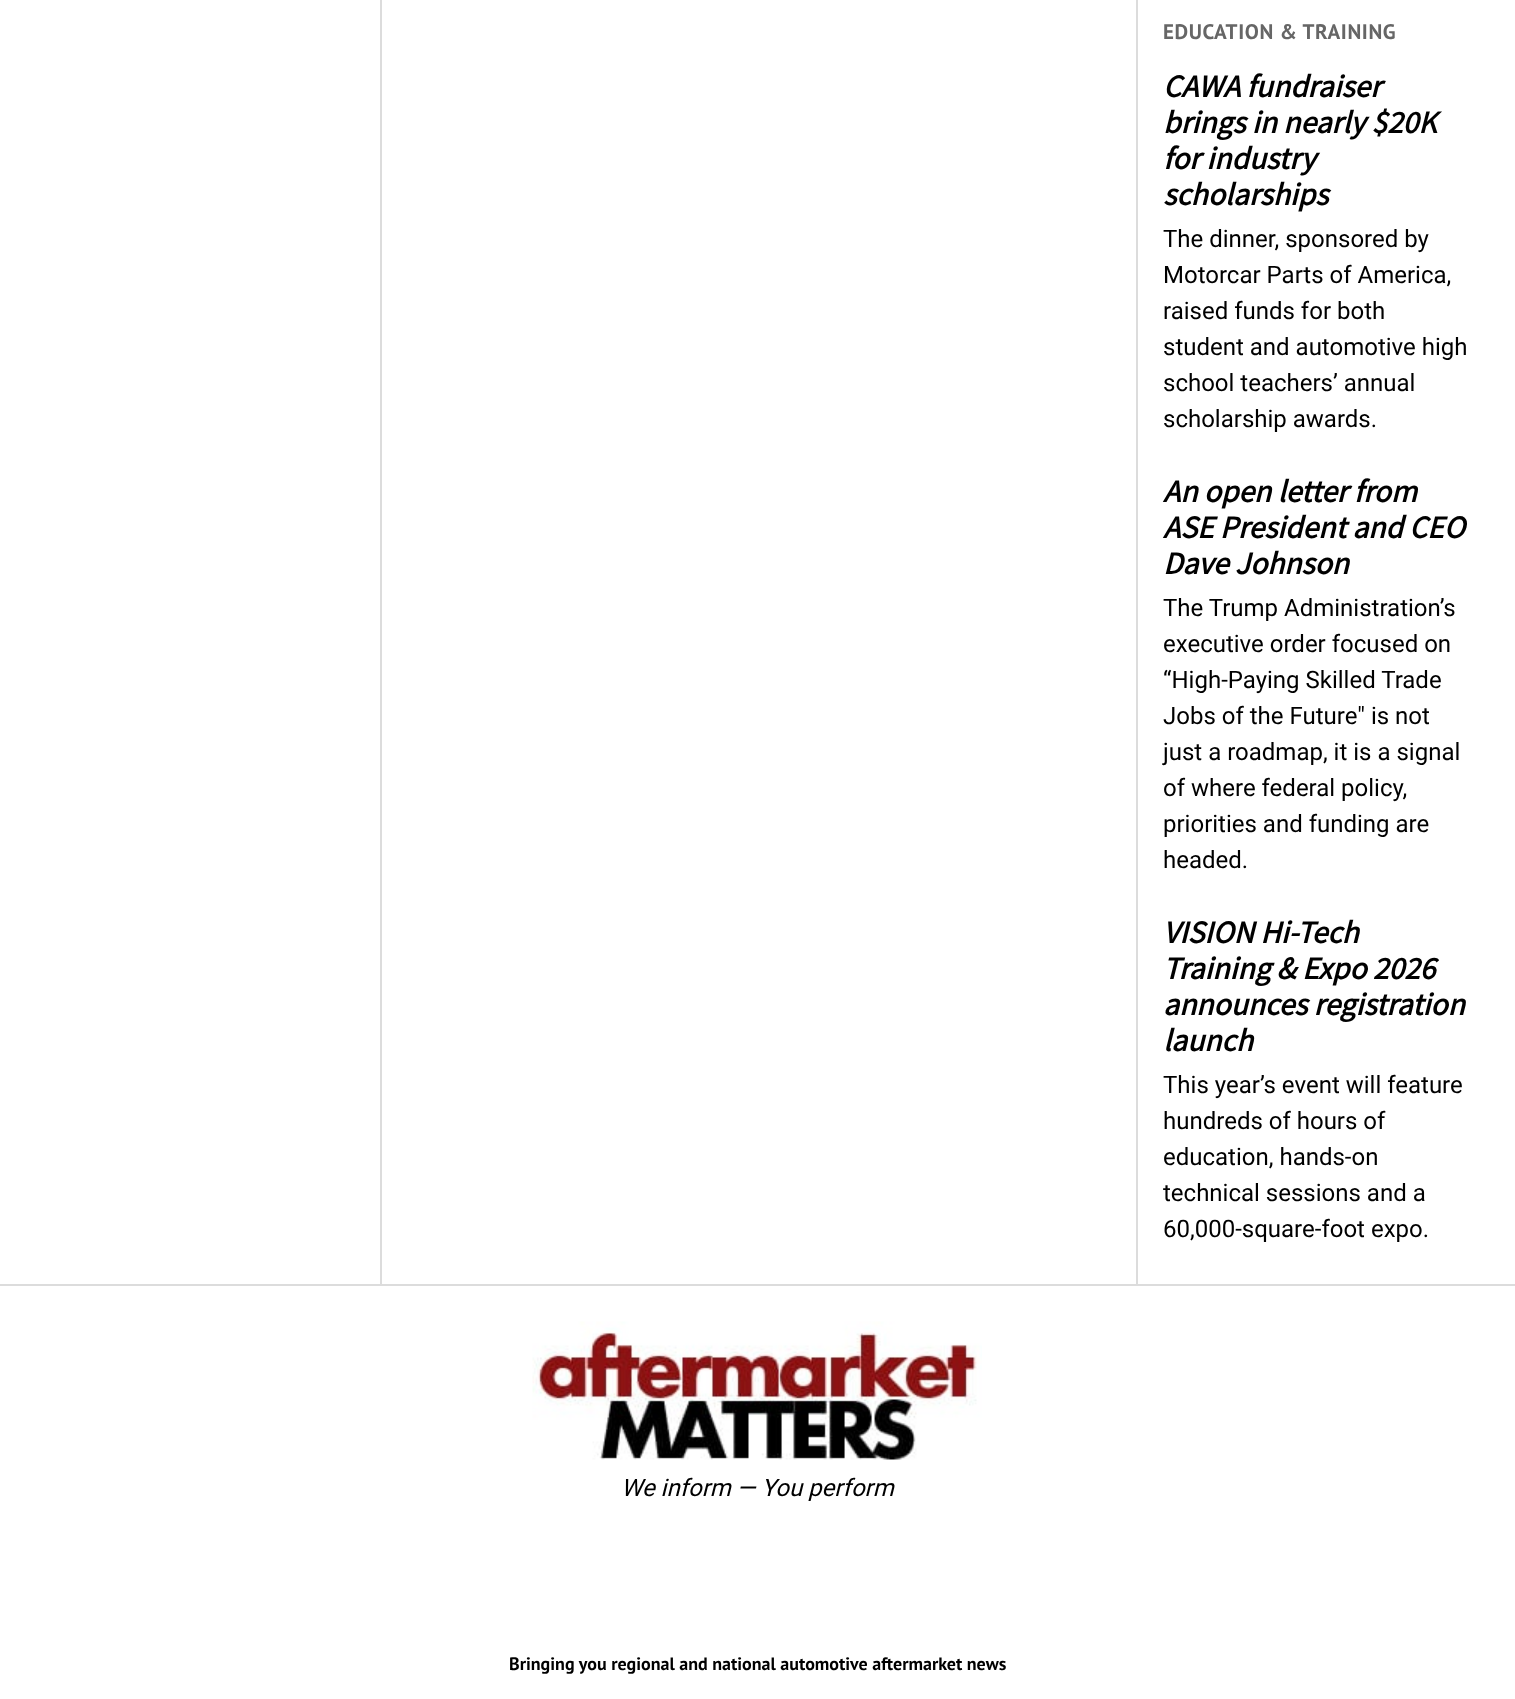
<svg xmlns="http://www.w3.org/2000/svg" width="1515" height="1699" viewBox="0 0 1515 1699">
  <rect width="100%" height="100%" fill="#ffffff"/>
  <rect x="380" y="0" width="2" height="1284" fill="#dcdcdc"/>
  <rect x="1136" y="0" width="2" height="1284" fill="#dcdcdc"/>
  <text x="1163" y="39" font-family="PT Sans" font-size="21" font-weight="bold" letter-spacing="0.6" fill="#666666">EDUCATION &amp; TRAINING</text>
  <text x="1163" y="97" font-family="Source Sans Pro" font-size="31.5" font-weight="bold" font-style="italic" fill="#000000">CAWA fundraiser</text>
  <text x="1163" y="133" font-family="Source Sans Pro" font-size="31.5" font-weight="bold" font-style="italic" fill="#000000">brings in nearly $20K</text>
  <text x="1163" y="169" font-family="Source Sans Pro" font-size="31.5" font-weight="bold" font-style="italic" fill="#000000">for industry</text>
  <text x="1163" y="205" font-family="Source Sans Pro" font-size="31.5" font-weight="bold" font-style="italic" fill="#000000">scholarships</text>
  <text x="1163" y="247" font-family="Roboto" font-size="24" fill="#000000">The dinner, sponsored by</text>
  <text x="1163" y="283" font-family="Roboto" font-size="24" fill="#000000">Motorcar Parts of America,</text>
  <text x="1163" y="319" font-family="Roboto" font-size="24" fill="#000000">raised funds for both</text>
  <text x="1163" y="355" font-family="Roboto" font-size="24" fill="#000000">student and automotive high</text>
  <text x="1163" y="391" font-family="Roboto" font-size="24" fill="#000000">school teachers’ annual</text>
  <text x="1163" y="427" font-family="Roboto" font-size="24" fill="#000000">scholarship awards.</text>
  <text x="1163" y="502" font-family="Source Sans Pro" font-size="31.5" font-weight="bold" font-style="italic" fill="#000000">An open letter from</text>
  <text x="1163" y="538" font-family="Source Sans Pro" font-size="31.5" font-weight="bold" font-style="italic" fill="#000000">ASE President and CEO</text>
  <text x="1163" y="574" font-family="Source Sans Pro" font-size="31.5" font-weight="bold" font-style="italic" fill="#000000">Dave Johnson</text>
  <text x="1163" y="616" font-family="Roboto" font-size="24" fill="#000000">The Trump Administration’s</text>
  <text x="1163" y="652" font-family="Roboto" font-size="24" fill="#000000">executive order focused on</text>
  <text x="1163" y="688" font-family="Roboto" font-size="24" fill="#000000">“High-Paying Skilled Trade</text>
  <text x="1163" y="724" font-family="Roboto" font-size="24" fill="#000000">Jobs of the Future" is not</text>
  <text x="1163" y="760" font-family="Roboto" font-size="24" fill="#000000">just a roadmap, it is a signal</text>
  <text x="1163" y="796" font-family="Roboto" font-size="24" fill="#000000">of where federal policy,</text>
  <text x="1163" y="832" font-family="Roboto" font-size="24" fill="#000000">priorities and funding are</text>
  <text x="1163" y="868" font-family="Roboto" font-size="24" fill="#000000">headed.</text>
  <text x="1163" y="943" font-family="Source Sans Pro" font-size="31.5" font-weight="bold" font-style="italic" fill="#000000">VISION Hi-Tech</text>
  <text x="1163" y="979" font-family="Source Sans Pro" font-size="31.5" font-weight="bold" font-style="italic" fill="#000000">Training &amp; Expo 2026</text>
  <text x="1163" y="1015" font-family="Source Sans Pro" font-size="31.5" font-weight="bold" font-style="italic" fill="#000000">announces registration</text>
  <text x="1163" y="1051" font-family="Source Sans Pro" font-size="31.5" font-weight="bold" font-style="italic" fill="#000000">launch</text>
  <text x="1163" y="1093" font-family="Roboto" font-size="24" fill="#000000">This year’s event will feature</text>
  <text x="1163" y="1129" font-family="Roboto" font-size="24" fill="#000000">hundreds of hours of</text>
  <text x="1163" y="1165" font-family="Roboto" font-size="24" fill="#000000">education, hands-on</text>
  <text x="1163" y="1201" font-family="Roboto" font-size="24" fill="#000000">technical sessions and a</text>
  <text x="1163" y="1237" font-family="Roboto" font-size="24" fill="#000000">60,000-square-foot expo.</text>
  <rect x="0" y="1284" width="1515" height="2" fill="#dcdcdc"/>
  <image x="532" y="1321" width="450" height="139" href="img1.png"/>
  <text x="621" y="1496" font-family="Roboto" font-size="24" font-style="italic" fill="#000000">We inform — You perform</text>
  <text x="509" y="1670" font-family="PT Sans" font-size="18" font-weight="bold" fill="#000000">Bringing you regional and national automotive aftermarket news</text>
</svg>
